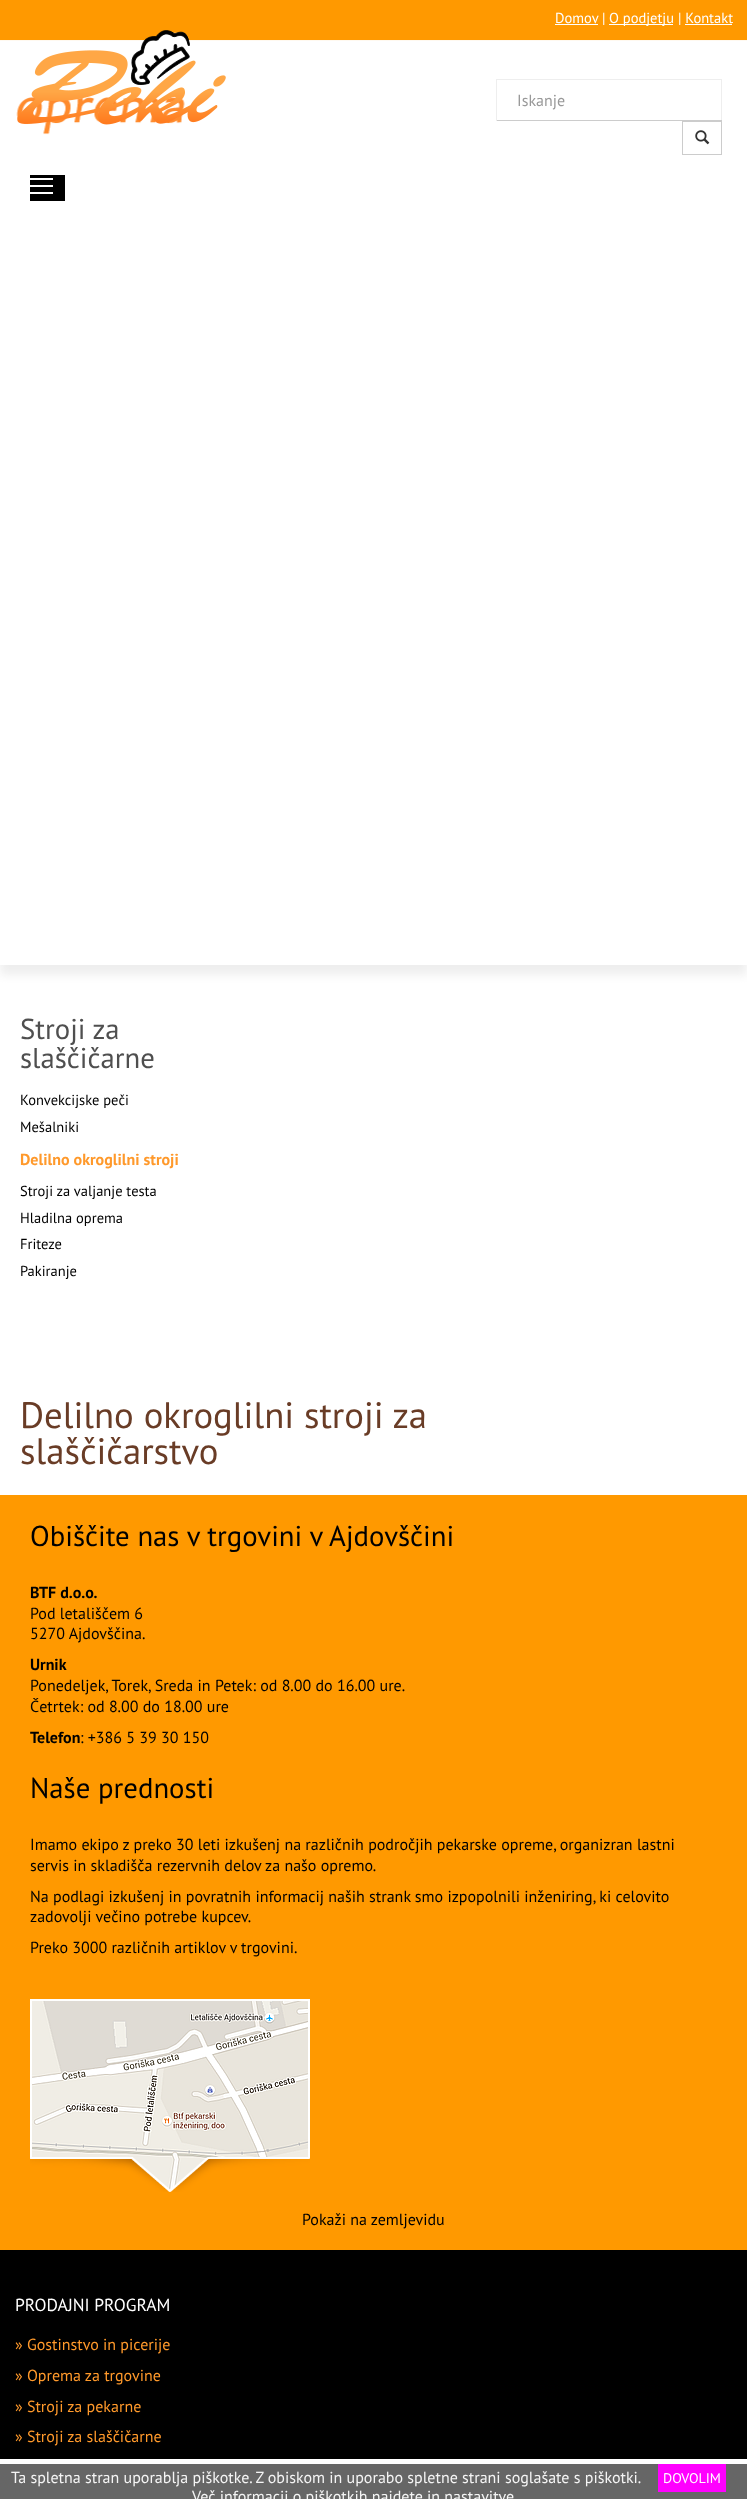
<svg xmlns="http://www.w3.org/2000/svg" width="747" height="2499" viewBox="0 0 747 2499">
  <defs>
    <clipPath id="clip1"><rect x="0" y="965" width="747" height="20"/></clipPath>
    <filter id="blur1" x="-50%" y="-200%" width="200%" height="500%"><feGaussianBlur stdDeviation="5"/></filter>
  </defs>
  <rect width="100%" height="100%" fill="#ffffff"/>
  <g clip-path="url(#clip1)">
    <rect x="0" y="10" width="747" height="965" fill="#eeeeee" filter="url(#blur1)"/>
  </g>
  <image x="0" y="0" width="747" height="135" href="img1.png"/>
  <text x="555" y="23" font-family="PT Sans" font-size="14.5" fill="#ffffff">Domov</text>
  <rect x="555" y="24" width="43" height="1" fill="#ffffff"/>
  <text x="602" y="23" font-family="PT Sans" font-size="14.5" fill="#ffffff">|</text>
  <rect x="609" y="24" width="64" height="1" fill="#ffffff"/>
  <text x="609" y="23" font-family="PT Sans" font-size="14.5" fill="#ffffff">O podjetju | Kontakt</text>
  <rect x="685" y="24" width="47" height="1" fill="#ffffff"/>
  <image x="17" y="30" width="209" height="95" href="img2.png"/>
  <rect x="496" y="79" width="226" height="1" fill="#eeeeee"/>
  <rect x="721" y="79" width="1" height="42" fill="#eeeeee"/>
  <rect x="496" y="120" width="226" height="1" fill="#cccccc"/>
  <rect x="496" y="79" width="1" height="42" fill="#eeeeee"/>
  <text x="517" y="106" font-family="PT Sans" font-size="16" fill="#999999">Iskanje</text>
  <rect x="682.5" y="121.5" width="39" height="33" fill="none" stroke="#cccccc"/>
  <image x="695" y="130" width="15" height="15" href="img3.png"/>
  <rect x="30" y="175" width="35" height="26" fill="#000000"/>
  <rect x="30" y="185" width="23" height="2" fill="#ffffff"/>
  <rect x="30" y="178" width="23" height="2" fill="#ffffff"/>
  <rect x="30" y="192" width="23" height="2" fill="#ffffff"/>
  <text x="20" y="1039" font-family="PT Sans" font-size="28.75" fill="#4f4f4f">Stroji za</text>
  <text x="20" y="1068" font-family="PT Sans" font-size="28.75" fill="#4f4f4f">slaščičarne</text>
  <text x="20" y="1105" font-family="PT Sans" font-size="14.5" fill="#000000">Konvekcijske peči</text>
  <text x="20" y="1132" font-family="PT Sans" font-size="14.5" fill="#000000">Mešalniki</text>
  <text x="20" y="1165" font-family="PT Sans" font-size="16" font-weight="bold" fill="#ff992b">Delilno okroglilni stroji</text>
  <text x="20" y="1196" font-family="PT Sans" font-size="14.5" fill="#000000">Stroji za valjanje testa</text>
  <text x="20" y="1223" font-family="PT Sans" font-size="14.5" fill="#000000">Hladilna oprema</text>
  <text x="20" y="1249" font-family="PT Sans" font-size="14.5" fill="#000000">Friteze</text>
  <text x="20" y="1276" font-family="PT Sans" font-size="14.5" fill="#000000">Pakiranje</text>
  <text x="20" y="1428" font-family="PT Sans" font-size="36.75" fill="#693c26">Delilno okroglilni stroji za</text>
  <text x="20" y="1464" font-family="PT Sans" font-size="36.75" fill="#693c26">slaščičarstvo</text>
  <rect x="0" y="2250" width="747" height="209" fill="#000000"/>
  <rect x="0" y="1495" width="747" height="755" fill="#ff9900"/>
  <text x="30" y="1546" font-family="PT Sans" font-size="28.75" fill="#000000">Obiščite nas v trgovini v Ajdovščini</text>
  <text x="30" y="1598" font-family="PT Sans" font-size="16" font-weight="bold" fill="#000000">BTF d.o.o.</text>
  <text x="30" y="1619" font-family="PT Sans" font-size="16" fill="#000000">Pod letališčem 6</text>
  <text x="30" y="1639" font-family="PT Sans" font-size="16" fill="#000000">5270 Ajdovščina.</text>
  <text x="30" y="1670" font-family="PT Sans" font-size="16" font-weight="bold" fill="#000000">Urnik</text>
  <text x="30" y="1691" font-family="PT Sans" font-size="16" fill="#000000">Ponedeljek, Torek, Sreda in Petek: od 8.00 do 16.00 ure.</text>
  <text x="30" y="1712" font-family="PT Sans" font-size="16" fill="#000000">Četrtek: od 8.00 do 18.00 ure</text>
  <text x="30" y="1743" font-family="PT Sans" font-size="16" font-weight="bold" fill="#000000">Telefon</text>
  <text x="80" y="1743" font-family="PT Sans" font-size="16" fill="#000000">: +386 5 39 30 150</text>
  <text x="30" y="1798" font-family="PT Sans" font-size="28.75" fill="#000000">Naše prednosti</text>
  <text x="30" y="1850" font-family="PT Sans" font-size="16" fill="#000000">Imamo ekipo z preko 30 leti izkušenj na različnih področjih pekarske opreme, organizran lastni</text>
  <text x="30" y="1871" font-family="PT Sans" font-size="16" fill="#000000">servis in skladišča rezervnih delov za našo opremo.</text>
  <text x="30" y="1902" font-family="PT Sans" font-size="16" fill="#000000">Na podlagi izkušenj in povratnih informacij naših strank smo izpopolnili inženiring, ki celovito</text>
  <text x="30" y="1922" font-family="PT Sans" font-size="16" fill="#000000">zadovolji večino potrebe kupcev.</text>
  <text x="30" y="1953" font-family="PT Sans" font-size="16" fill="#000000">Preko 3000 različnih artiklov v trgovini.</text>
  <image x="30" y="1999" width="280" height="193" href="img4.png"/>
  <text x="302" y="2225" font-family="PT Sans" font-size="16" fill="#000000">Pokaži na zemljevidu</text>
  <text x="15" y="2311" font-family="PT Sans" font-size="17.5" fill="#ffffff">PRODAJNI PROGRAM</text>
  <text x="15" y="2350" font-family="PT Sans" font-size="16" fill="#ff992b">» Gostinstvo in picerije</text>
  <text x="15" y="2381" font-family="PT Sans" font-size="16" fill="#ff992b">» Oprema za trgovine</text>
  <text x="15" y="2412" font-family="PT Sans" font-size="16" fill="#ff992b">» Stroji za pekarne</text>
  <text x="15" y="2442" font-family="PT Sans" font-size="16" fill="#ff992b">» Stroji za slaščičarne</text>
  <rect x="0" y="2464" width="747" height="35" fill="#666666"/>
  <text x="11" y="2483" font-family="PT Sans" font-size="16" fill="#f5f5f5">Ta spletna stran uporablja piškotke. Z obiskom in uporabo spletne strani soglašate s piškotki.</text>
  <rect x="658" y="2464" width="68" height="28" fill="#ff00ff"/>
  <text x="663" y="2483" font-family="PT Sans" font-size="14" fill="#ffffff">DOVOLIM</text>
  <text x="192" y="2502" font-family="PT Sans" font-size="16" fill="#f5f5f5">Več informacij o piškotkih najdete in nastavitve</text>
</svg>
